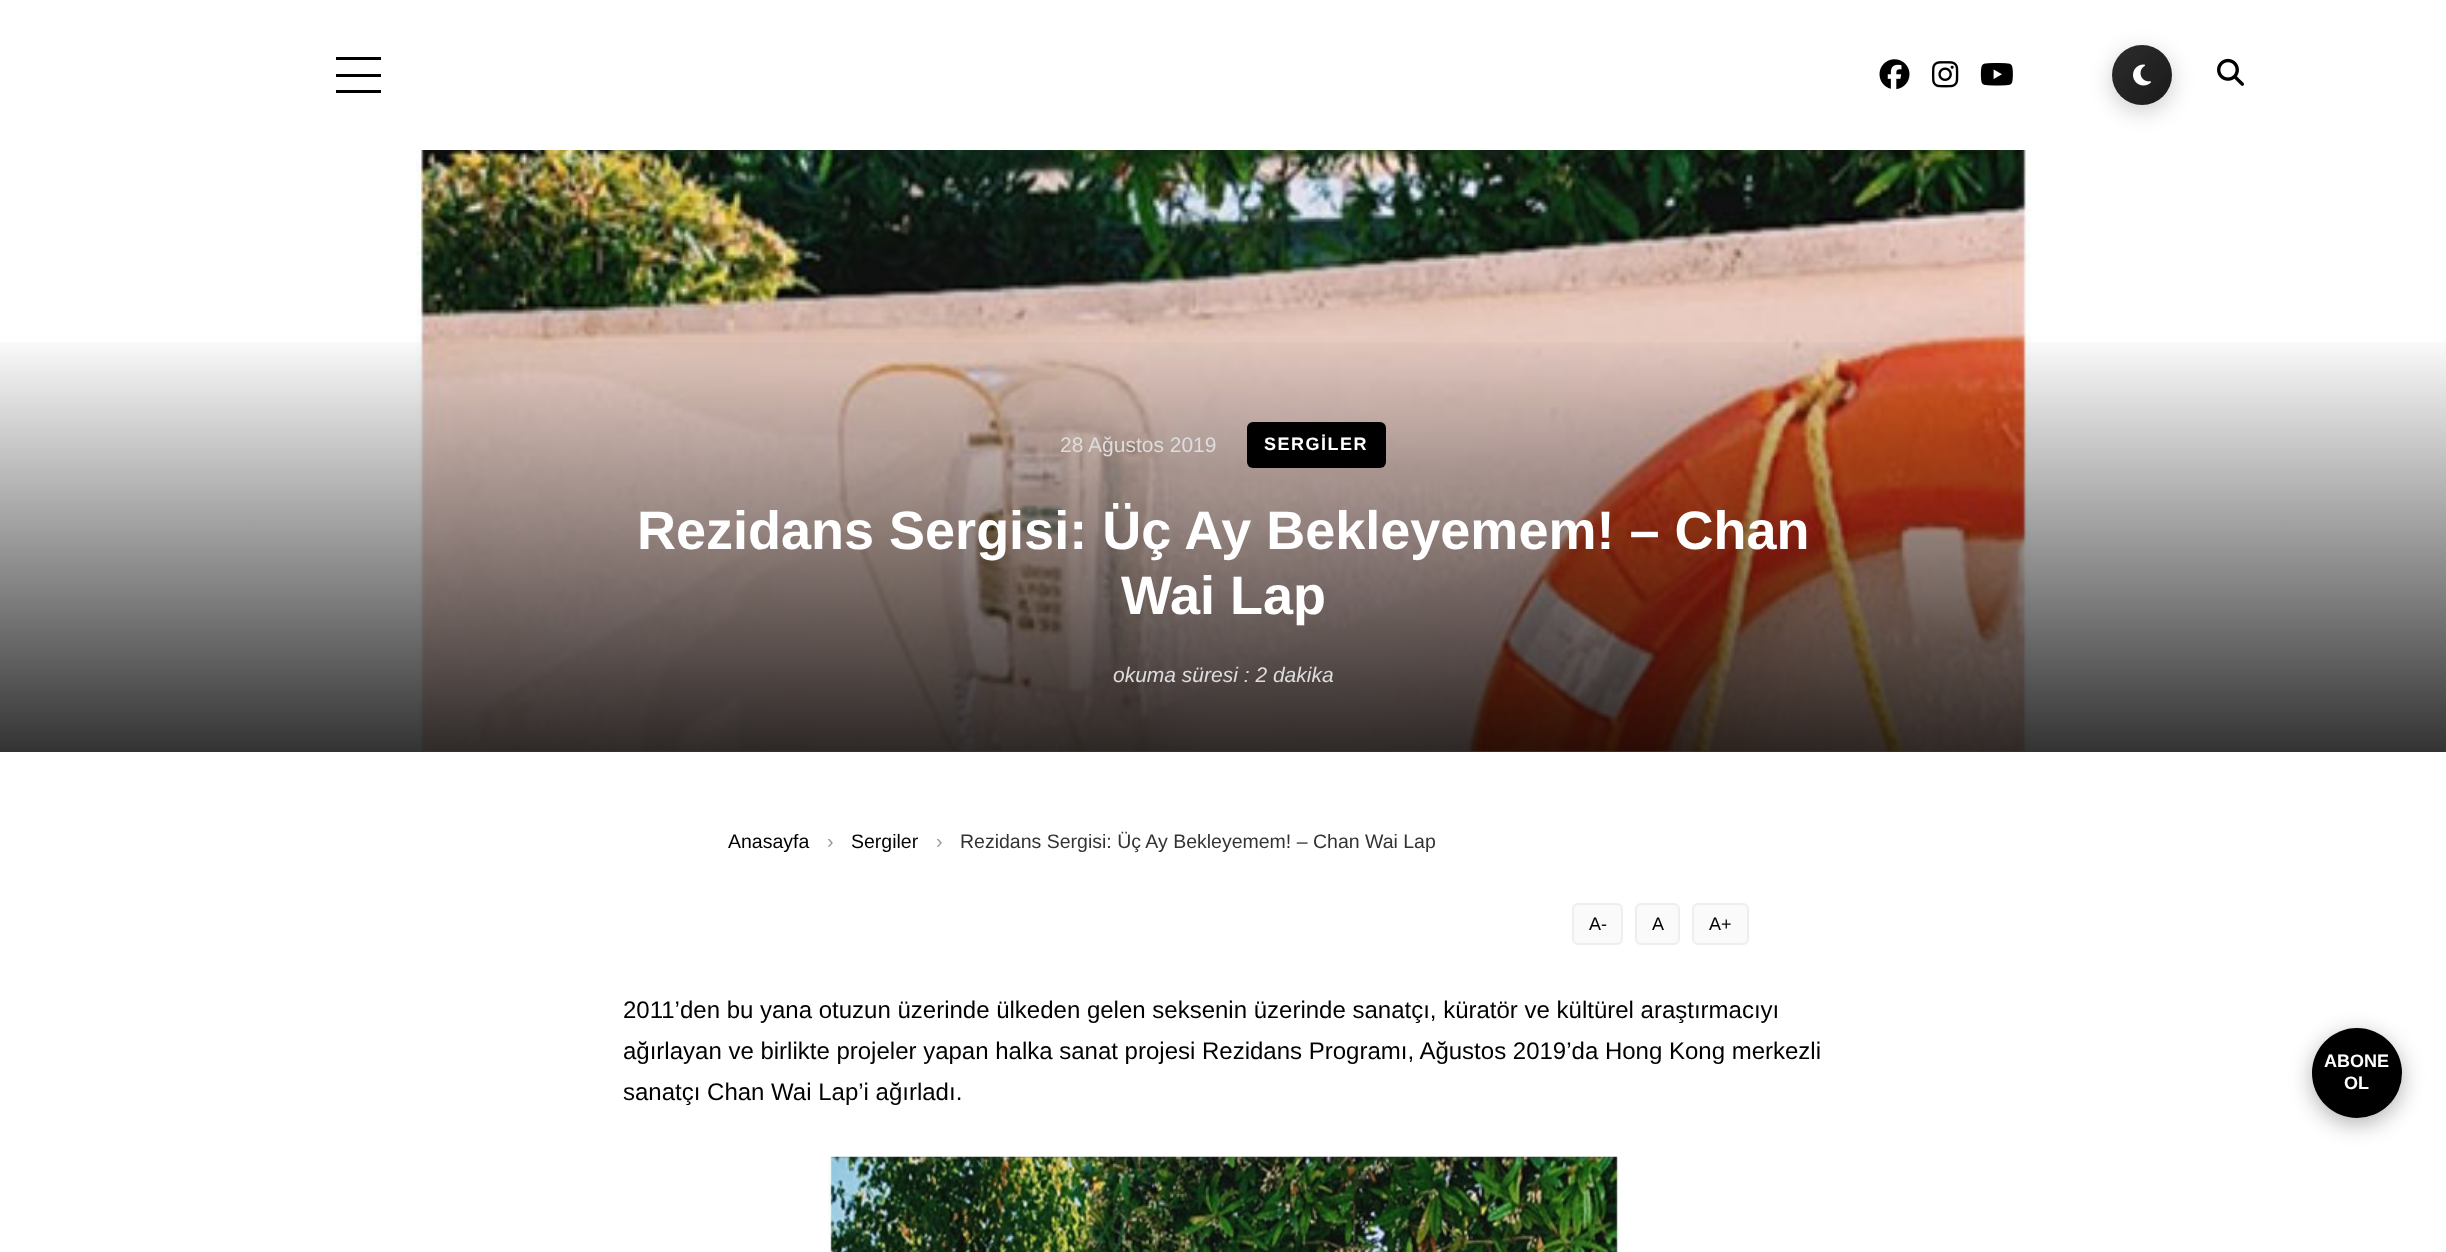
<svg xmlns="http://www.w3.org/2000/svg" width="2446" height="1252" viewBox="0 0 2446 1252">
  <defs>
    <filter id="blur1" x="-50%" y="-200%" width="200%" height="500%"><feGaussianBlur stdDeviation="11"/></filter>
    <linearGradient id="g1" gradientUnits="userSpaceOnUse" x1="2112" y1="45" x2="2172" y2="105"><stop offset="0" stop-color="#2c2c2c"/><stop offset="1" stop-color="#1a1a1a"/></linearGradient>
    <linearGradient id="g2" gradientUnits="userSpaceOnUse" x1="1223" y1="331" x2="1223" y2="752"><stop offset="0" stop-color="#000000" stop-opacity="0"/><stop offset="1" stop-color="#000000" stop-opacity="0.8"/></linearGradient>
  </defs>
  <rect width="100%" height="100%" fill="#ffffff"/>
  <rect x="336" y="57" width="45" height="3" fill="#000000"/>
  <rect x="336" y="74" width="45" height="3" fill="#000000"/>
  <rect x="336" y="90" width="45" height="3" fill="#000000"/>
  <image x="1879" y="59" width="31" height="31" href="img1.png"/>
  <image x="1932" y="61" width="27" height="27" href="img2.png"/>
  <image x="1980" y="63" width="33" height="23" href="img3.png"/>
  <rect x="2112" y="51" width="60" height="60" rx="30" fill="#000000" fill-opacity="0.2" filter="url(#blur1)"/>
  <circle cx="2142" cy="75" r="30" fill="url(#g1)"/>
  <image x="2133" y="64" width="18" height="22" href="img4.png"/>
  <image x="2217" y="58" width="27" height="28" href="img5.png"/>
  <image x="416" y="150" width="1615" height="602" href="img6.png"/>
  <rect x="0" y="342" width="2446" height="410" fill="url(#g2)"/>
  <text x="1060" y="452" font-family="Liberation Sans" font-size="21" fill="#dddddd">28 Ağustos 2019</text>
  <rect x="1247" y="422" width="139" height="46" rx="6" fill="#000000"/>
  <text x="1264" y="450" font-family="Liberation Sans" font-size="18" font-weight="bold" letter-spacing="1.5" fill="#ffffff">SERGİLER</text>
  <text x="637" y="549" font-family="Liberation Sans" font-size="54" font-weight="bold" fill="#ffffff">Rezidans Sergisi: Üç Ay Bekleyemem! – Chan</text>
  <text x="1121" y="614" font-family="Liberation Sans" font-size="54" font-weight="bold" fill="#ffffff">Wai Lap</text>
  <text x="1113" y="682" font-family="Liberation Sans" font-size="21" font-style="italic" fill="#dddddd">okuma süresi : 2 dakika</text>
  <text x="728" y="848" font-family="Liberation Sans" font-size="19.5" fill="#000000">Anasayfa</text>
  <text x="827" y="848" font-family="Liberation Sans" font-size="19.5" fill="#999999">›</text>
  <text x="851" y="848" font-family="Liberation Sans" font-size="19.5" fill="#000000">Sergiler</text>
  <text x="936" y="848" font-family="Liberation Sans" font-size="19.5" fill="#999999">›</text>
  <text x="960" y="848" font-family="Liberation Sans" font-size="19.5" fill="#333333">Rezidans Sergisi: Üç Ay Bekleyemem! – Chan Wai Lap</text>
  <rect x="1573" y="904" width="49" height="40" rx="5" fill="#fafafa" stroke="#eeeeee" stroke-width="2"/>
  <text x="1589" y="930" font-family="Liberation Sans" font-size="18" fill="#000000">A-</text>
  <rect x="1636" y="904" width="43" height="40" rx="5" fill="#fafafa" stroke="#eeeeee" stroke-width="2"/>
  <text x="1652" y="930" font-family="Liberation Sans" font-size="18" fill="#000000">A</text>
  <rect x="1693" y="904" width="55" height="40" rx="5" fill="#fafafa" stroke="#eeeeee" stroke-width="2"/>
  <text x="1709" y="930" font-family="Liberation Sans" font-size="18" fill="#000000">A+</text>
  <text x="623" y="1018" font-family="Liberation Sans" font-size="24" fill="#000000">2011’den bu yana otuzun üzerinde ülkeden gelen seksenin üzerinde sanatçı, küratör ve kültürel araştırmacıyı</text>
  <text x="623" y="1059" font-family="Liberation Sans" font-size="24" fill="#000000">ağırlayan ve birlikte projeler yapan halka sanat projesi Rezidans Programı, Ağustos 2019’da Hong Kong merkezli</text>
  <text x="623" y="1100" font-family="Liberation Sans" font-size="24" fill="#000000">sanatçı Chan Wai Lap’i ağırladı.</text>
  <image x="828" y="1156" width="792" height="96" href="img7.png"/>
  <rect x="2312" y="1034" width="90" height="90" rx="45" fill="#000000" fill-opacity="0.3" filter="url(#blur1)"/>
  <circle cx="2357" cy="1073" r="45" fill="#000000"/>
  <text x="2324" y="1067" font-family="Liberation Sans" font-size="18" font-weight="bold" fill="#ffffff">ABONE</text>
  <text x="2344" y="1089" font-family="Liberation Sans" font-size="18" font-weight="bold" fill="#ffffff">OL</text>
</svg>
